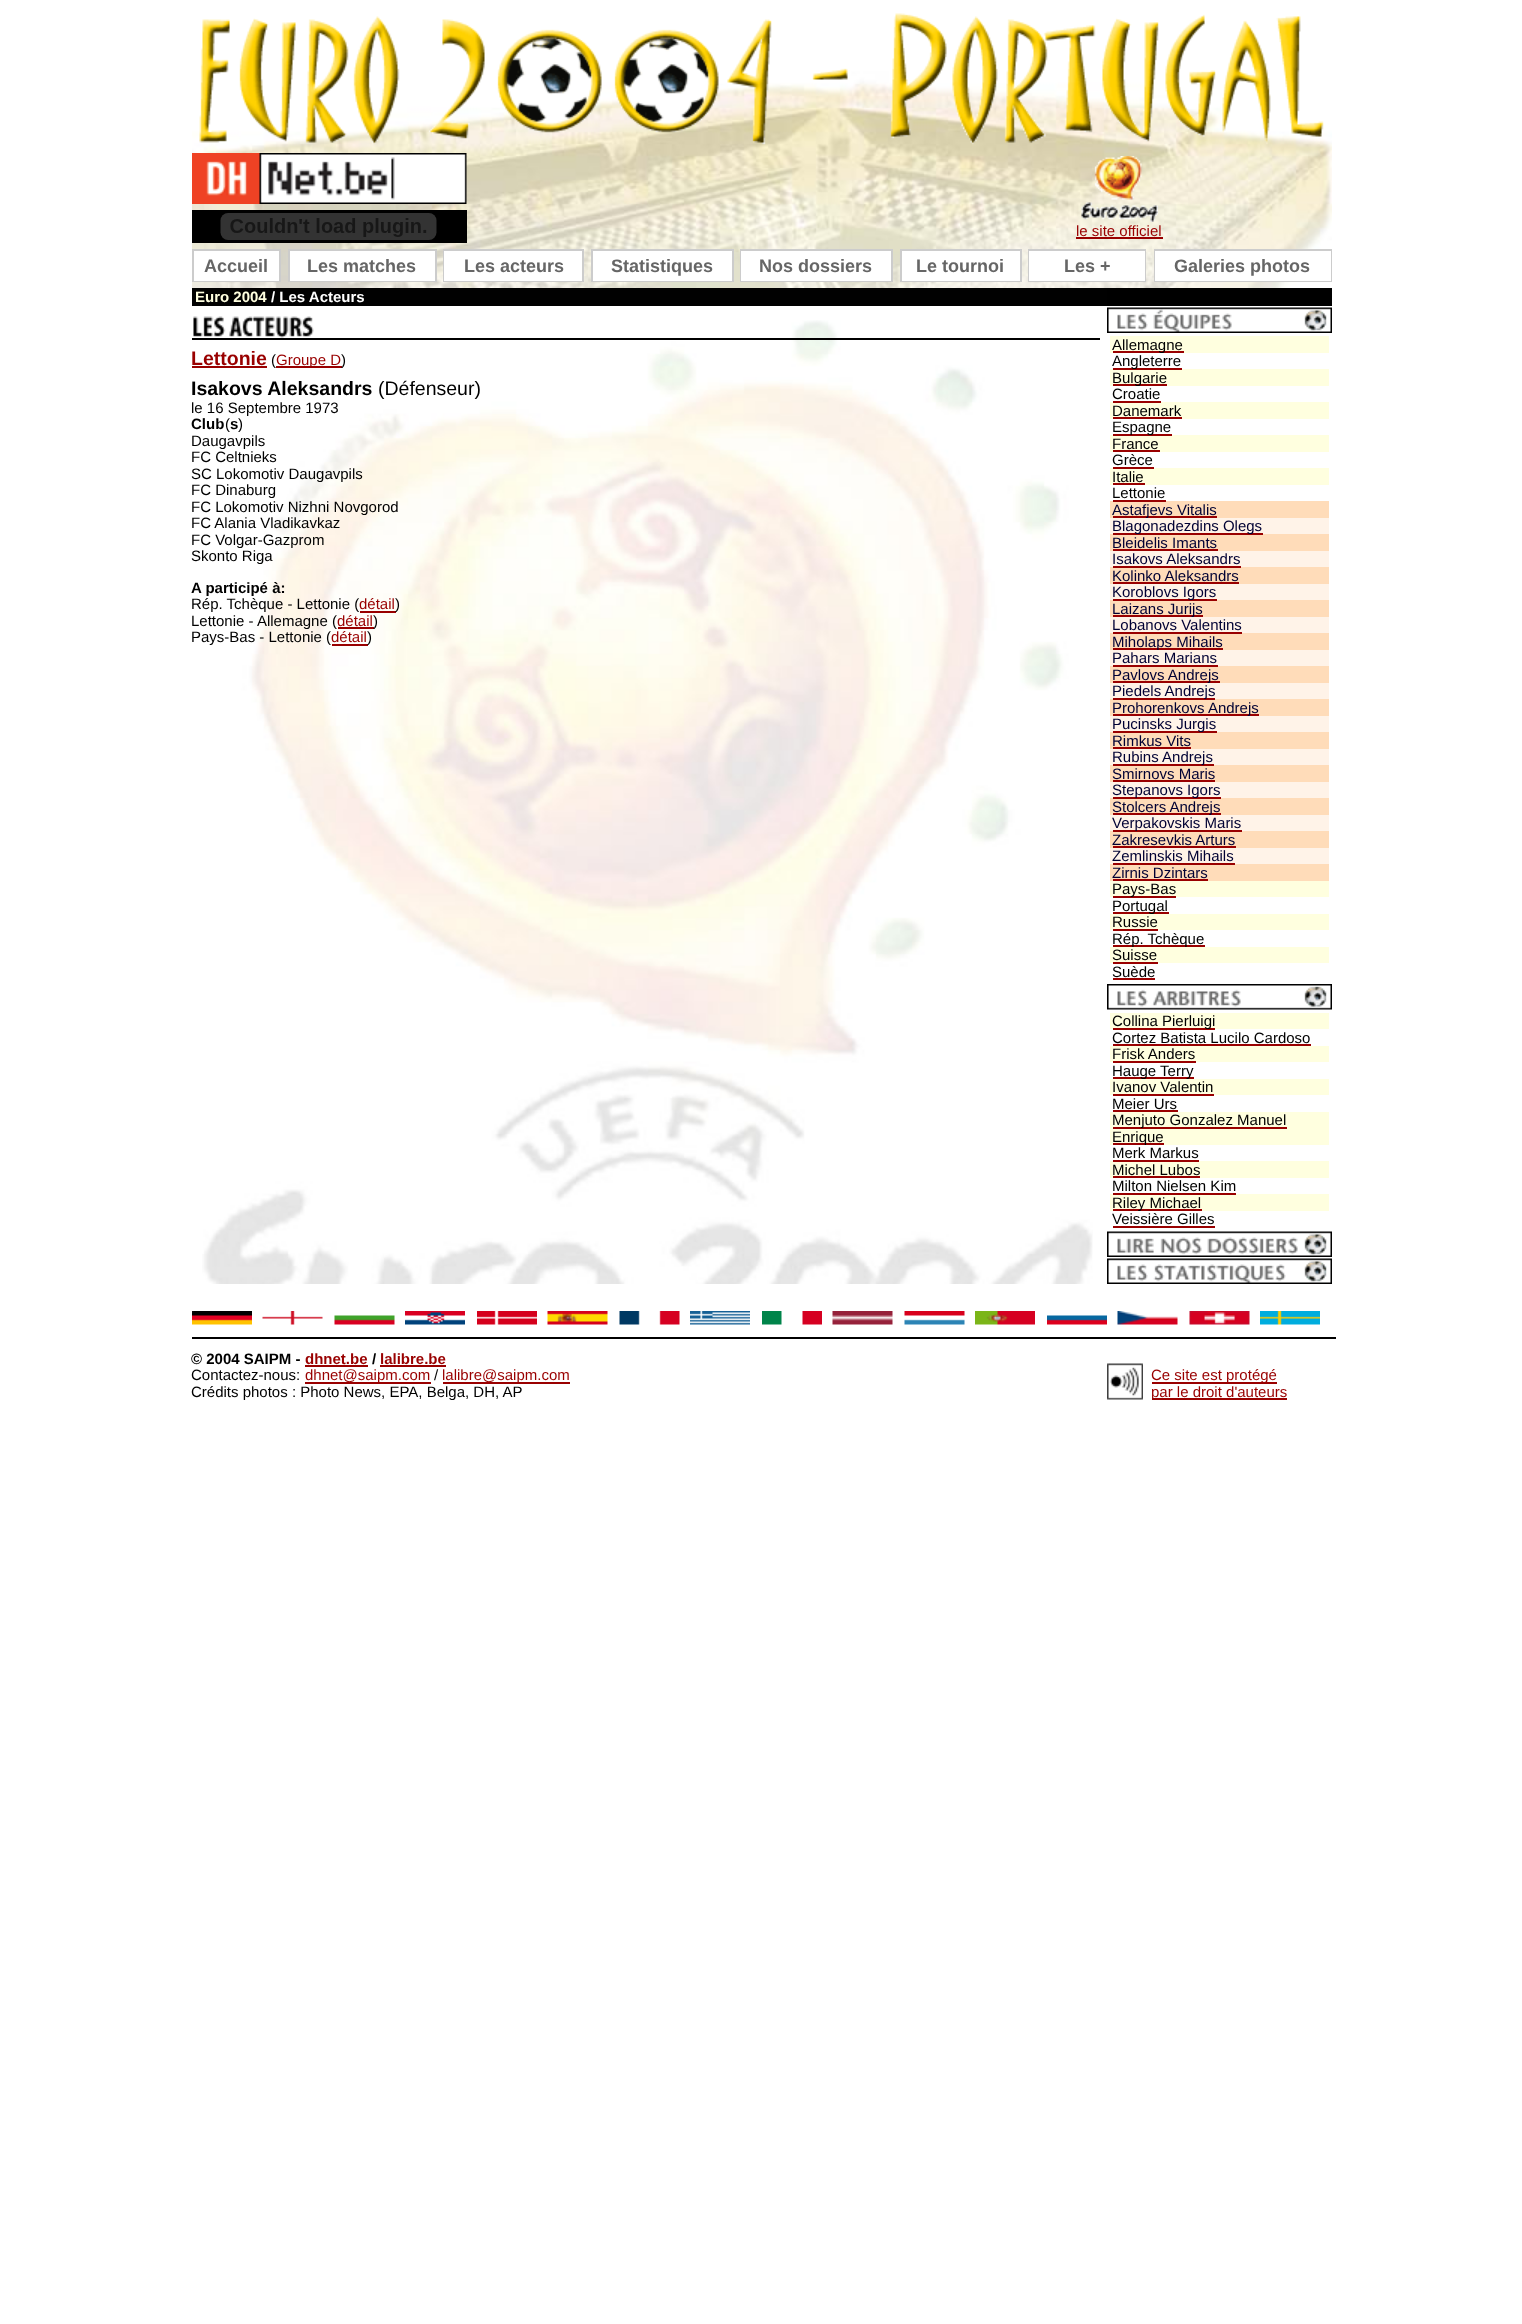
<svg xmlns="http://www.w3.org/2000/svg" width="1522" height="2324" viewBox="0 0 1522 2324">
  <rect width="100%" height="100%" fill="#ffffff"/>
  <image x="192" y="12" width="1140" height="276" href="img1.png"/>
  <image x="199" y="13" width="1125" height="132" href="img2.png"/>
  <image x="192" y="153" width="275" height="51" href="img3.png"/>
  <rect x="192" y="210" width="275" height="33" fill="#000000"/>
  <image x="220" y="213" width="217" height="27" href="img4.png"/>
  <image x="1081" y="156" width="77" height="66" href="img5.png"/>
  <text x="1076" y="236" font-family="Liberation Sans" font-size="15" fill="#990000">le site officiel</text>
  <rect x="1076" y="237" width="87" height="2" fill="#990000"/>
  <rect x="192" y="249" width="89" height="33" fill="#cccccc"/>
  <rect x="194" y="251" width="85" height="30" fill="#ffffff"/>
  <text x="204" y="272" font-family="Liberation Sans" font-size="18" font-weight="bold" fill="#666666">Accueil</text>
  <rect x="288" y="249" width="149" height="33" fill="#cccccc"/>
  <rect x="290" y="251" width="145" height="30" fill="#ffffff"/>
  <text x="307" y="272" font-family="Liberation Sans" font-size="18" font-weight="bold" fill="#666666">Les matches</text>
  <rect x="443" y="249" width="141" height="33" fill="#cccccc"/>
  <rect x="444" y="251" width="138" height="30" fill="#ffffff"/>
  <text x="464" y="272" font-family="Liberation Sans" font-size="18" font-weight="bold" fill="#666666">Les acteurs</text>
  <rect x="591" y="249" width="143" height="33" fill="#cccccc"/>
  <rect x="593" y="251" width="139" height="30" fill="#ffffff"/>
  <text x="611" y="272" font-family="Liberation Sans" font-size="18" font-weight="bold" fill="#666666">Statistiques</text>
  <rect x="740" y="249" width="153" height="33" fill="#cccccc"/>
  <rect x="741" y="251" width="150" height="30" fill="#ffffff"/>
  <text x="759" y="272" font-family="Liberation Sans" font-size="18" font-weight="bold" fill="#666666">Nos dossiers</text>
  <rect x="900" y="249" width="122" height="33" fill="#cccccc"/>
  <rect x="902" y="251" width="118" height="30" fill="#ffffff"/>
  <text x="916" y="272" font-family="Liberation Sans" font-size="18" font-weight="bold" fill="#666666">Le tournoi</text>
  <rect x="1028" y="249" width="118" height="33" fill="#cccccc"/>
  <rect x="1029" y="251" width="116" height="30" fill="#ffffff"/>
  <text x="1064" y="272" font-family="Liberation Sans" font-size="18" font-weight="bold" fill="#666666">Les +</text>
  <rect x="1154" y="249" width="178" height="33" fill="#cccccc"/>
  <rect x="1155" y="251" width="176" height="30" fill="#ffffff"/>
  <text x="1174" y="272" font-family="Liberation Sans" font-size="18" font-weight="bold" fill="#666666">Galeries photos</text>
  <rect x="192" y="288" width="915" height="18" fill="#010101"/>
  <text x="195" y="302" font-family="Liberation Sans" font-size="15" font-weight="bold" fill="#ffffdf">Euro 2004</text>
  <text x="271" y="302" font-family="Liberation Sans" font-size="15" font-weight="bold" fill="#ffffff">/ Les Acteurs</text>
  <rect x="1107" y="288" width="225" height="18" fill="#000000"/>
  <image x="202" y="320" width="891" height="964" href="img6.png"/>
  <image x="193" y="316" width="121" height="22" href="img7.png"/>
  <rect x="192" y="338" width="908" height="2" fill="#000000"/>
  <text x="191" y="365" font-family="Liberation Sans" font-size="19.5" font-weight="bold" fill="#990000">Lettonie</text>
  <text x="271" y="365" font-family="Liberation Sans" font-size="15" fill="#000000">(</text>
  <rect x="192" y="366" width="75" height="2" fill="#990000"/>
  <rect x="276" y="366" width="66" height="2" fill="#990000"/>
  <text x="276" y="365" font-family="Liberation Sans" font-size="15" fill="#990000">Groupe D</text>
  <text x="341" y="365" font-family="Liberation Sans" font-size="15" fill="#000000">)</text>
  <text x="191" y="395" font-family="Liberation Sans" font-size="19.5" font-weight="bold" fill="#000000">Isakovs Aleksandrs</text>
  <text x="378" y="395" font-family="Liberation Sans" font-size="19.5" fill="#000000">(Défenseur)</text>
  <text x="191" y="413" font-family="Liberation Sans" font-size="15" fill="#000000">le 16 Septembre 1973</text>
  <text x="191" y="429" font-family="Liberation Sans" font-size="15" font-weight="bold" fill="#000000">Club</text>
  <text x="225" y="429" font-family="Liberation Sans" font-size="15" fill="#000000">(</text>
  <text x="230" y="429" font-family="Liberation Sans" font-size="15" font-weight="bold" fill="#000000">s</text>
  <text x="238" y="429" font-family="Liberation Sans" font-size="15" fill="#000000">)</text>
  <text x="191" y="446" font-family="Liberation Sans" font-size="15" fill="#000000">Daugavpils</text>
  <text x="191" y="462" font-family="Liberation Sans" font-size="15" fill="#000000">FC Celtnieks</text>
  <text x="191" y="479" font-family="Liberation Sans" font-size="15" fill="#000000">SC Lokomotiv Daugavpils</text>
  <text x="191" y="495" font-family="Liberation Sans" font-size="15" fill="#000000">FC Dinaburg</text>
  <text x="191" y="512" font-family="Liberation Sans" font-size="15" fill="#000000">FC Lokomotiv Nizhni Novgorod</text>
  <text x="191" y="528" font-family="Liberation Sans" font-size="15" fill="#000000">FC Alania Vladikavkaz</text>
  <text x="191" y="545" font-family="Liberation Sans" font-size="15" fill="#000000">FC Volgar-Gazprom</text>
  <text x="191" y="561" font-family="Liberation Sans" font-size="15" fill="#000000">Skonto Riga</text>
  <text x="191" y="593" font-family="Liberation Sans" font-size="15" font-weight="bold" fill="#000000">A participé à:</text>
  <text x="191" y="609" font-family="Liberation Sans" font-size="15" fill="#000000">Rép. Tchèque - Lettonie (</text>
  <text x="359" y="609" font-family="Liberation Sans" font-size="15" fill="#990000">détail</text>
  <rect x="360" y="611" width="36" height="2" fill="#990000"/>
  <text x="395" y="609" font-family="Liberation Sans" font-size="15" fill="#000000">)</text>
  <text x="191" y="626" font-family="Liberation Sans" font-size="15" fill="#000000">Lettonie - Allemagne (</text>
  <text x="337" y="626" font-family="Liberation Sans" font-size="15" fill="#990000">détail</text>
  <rect x="338" y="627" width="36" height="2" fill="#990000"/>
  <text x="373" y="626" font-family="Liberation Sans" font-size="15" fill="#000000">)</text>
  <text x="191" y="642" font-family="Liberation Sans" font-size="15" fill="#000000">Pays-Bas - Lettonie (</text>
  <text x="331" y="642" font-family="Liberation Sans" font-size="15" fill="#990000">détail</text>
  <rect x="332" y="644" width="36" height="2" fill="#990000"/>
  <text x="367" y="642" font-family="Liberation Sans" font-size="15" fill="#000000">)</text>
  <image x="1107" y="307" width="225" height="26" href="img8.png"/>
  <rect x="1110" y="336" width="219" height="17" fill="#ffffdf"/>
  <rect x="1113" y="351" width="71" height="2" fill="#990000"/>
  <text x="1112" y="350" font-family="Liberation Sans" font-size="15" fill="#000000">Allemagne</text>
  <rect x="1110" y="369" width="219" height="17" fill="#ffffdf"/>
  <rect x="1113" y="368" width="69" height="2" fill="#990000"/>
  <text x="1112" y="366" font-family="Liberation Sans" font-size="15" fill="#000000">Angleterre</text>
  <rect x="1113" y="384" width="54" height="2" fill="#990000"/>
  <text x="1112" y="383" font-family="Liberation Sans" font-size="15" fill="#000000">Bulgarie</text>
  <text x="1112" y="399" font-family="Liberation Sans" font-size="15" fill="#000000">Croatie</text>
  <rect x="1110" y="402" width="219" height="17" fill="#ffffdf"/>
  <rect x="1113" y="401" width="48" height="2" fill="#990000"/>
  <text x="1112" y="416" font-family="Liberation Sans" font-size="15" fill="#000000">Danemark</text>
  <rect x="1113" y="417" width="69" height="2" fill="#990000"/>
  <rect x="1110" y="435" width="219" height="17" fill="#ffffdf"/>
  <rect x="1113" y="434" width="59" height="2" fill="#990000"/>
  <text x="1112" y="432" font-family="Liberation Sans" font-size="15" fill="#000000">Espagne</text>
  <text x="1112" y="449" font-family="Liberation Sans" font-size="15" fill="#000000">France</text>
  <rect x="1113" y="450" width="47" height="2" fill="#990000"/>
  <text x="1112" y="465" font-family="Liberation Sans" font-size="15" fill="#000000">Grèce</text>
  <rect x="1110" y="468" width="219" height="17" fill="#ffffdf"/>
  <rect x="1113" y="467" width="41" height="2" fill="#990000"/>
  <text x="1112" y="482" font-family="Liberation Sans" font-size="15" fill="#000000">Italie</text>
  <rect x="1113" y="483" width="32" height="2" fill="#990000"/>
  <text x="1112" y="498" font-family="Liberation Sans" font-size="15" fill="#000000">Lettonie</text>
  <rect x="1110" y="501" width="219" height="17" fill="#ffdcb9"/>
  <rect x="1113" y="500" width="53" height="2" fill="#990000"/>
  <rect x="1113" y="516" width="104" height="2" fill="#990000"/>
  <rect x="1110" y="518" width="219" height="16" fill="#fff3e8"/>
  <text x="1112" y="515" font-family="Liberation Sans" font-size="15" fill="#000033">Astafjevs Vitalis</text>
  <rect x="1110" y="534" width="219" height="17" fill="#ffdcb9"/>
  <rect x="1113" y="533" width="150" height="2" fill="#990000"/>
  <text x="1112" y="531" font-family="Liberation Sans" font-size="15" fill="#000033">Blagonadezdins Olegs</text>
  <text x="1112" y="548" font-family="Liberation Sans" font-size="15" fill="#000033">Bleidelis Imants</text>
  <rect x="1113" y="549" width="105" height="2" fill="#990000"/>
  <rect x="1110" y="551" width="219" height="16" fill="#fff3e8"/>
  <text x="1112" y="564" font-family="Liberation Sans" font-size="15" fill="#000033">Isakovs Aleksandrs</text>
  <rect x="1110" y="567" width="219" height="17" fill="#ffdcb9"/>
  <rect x="1113" y="566" width="128" height="2" fill="#990000"/>
  <text x="1112" y="581" font-family="Liberation Sans" font-size="15" fill="#000033">Kolinko Aleksandrs</text>
  <rect x="1113" y="582" width="126" height="2" fill="#990000"/>
  <rect x="1110" y="584" width="219" height="16" fill="#fff3e8"/>
  <rect x="1110" y="600" width="219" height="17" fill="#ffdcb9"/>
  <rect x="1113" y="599" width="104" height="2" fill="#990000"/>
  <text x="1112" y="597" font-family="Liberation Sans" font-size="15" fill="#000033">Koroblovs Igors</text>
  <rect x="1113" y="615" width="90" height="2" fill="#990000"/>
  <rect x="1110" y="617" width="219" height="16" fill="#fff3e8"/>
  <text x="1112" y="614" font-family="Liberation Sans" font-size="15" fill="#000033">Laizans Jurijs</text>
  <text x="1112" y="630" font-family="Liberation Sans" font-size="15" fill="#000033">Lobanovs Valentins</text>
  <rect x="1110" y="633" width="219" height="17" fill="#ffdcb9"/>
  <rect x="1113" y="632" width="129" height="2" fill="#990000"/>
  <rect x="1113" y="648" width="110" height="2" fill="#990000"/>
  <rect x="1110" y="650" width="219" height="16" fill="#fff3e8"/>
  <text x="1112" y="647" font-family="Liberation Sans" font-size="15" fill="#000033">Miholaps Mihails</text>
  <text x="1112" y="663" font-family="Liberation Sans" font-size="15" fill="#000033">Pahars Marians</text>
  <rect x="1110" y="666" width="219" height="17" fill="#ffdcb9"/>
  <rect x="1113" y="665" width="105" height="2" fill="#990000"/>
  <rect x="1113" y="681" width="107" height="2" fill="#990000"/>
  <rect x="1110" y="683" width="219" height="16" fill="#fff3e8"/>
  <text x="1112" y="680" font-family="Liberation Sans" font-size="15" fill="#000033">Pavlovs Andrejs</text>
  <rect x="1110" y="699" width="219" height="17" fill="#ffdcb9"/>
  <rect x="1113" y="698" width="102" height="2" fill="#990000"/>
  <text x="1112" y="696" font-family="Liberation Sans" font-size="15" fill="#000033">Piedels Andrejs</text>
  <rect x="1113" y="714" width="146" height="2" fill="#990000"/>
  <rect x="1110" y="716" width="219" height="16" fill="#fff3e8"/>
  <text x="1112" y="713" font-family="Liberation Sans" font-size="15" fill="#000033">Prohorenkovs Andrejs</text>
  <rect x="1110" y="732" width="219" height="17" fill="#ffdcb9"/>
  <rect x="1113" y="731" width="104" height="2" fill="#990000"/>
  <text x="1112" y="729" font-family="Liberation Sans" font-size="15" fill="#000033">Pucinsks Jurgis</text>
  <text x="1112" y="746" font-family="Liberation Sans" font-size="15" fill="#000033">Rimkus Vits</text>
  <rect x="1113" y="747" width="78" height="2" fill="#990000"/>
  <rect x="1110" y="749" width="219" height="16" fill="#fff3e8"/>
  <rect x="1110" y="765" width="219" height="17" fill="#ffdcb9"/>
  <rect x="1113" y="764" width="101" height="2" fill="#990000"/>
  <text x="1112" y="762" font-family="Liberation Sans" font-size="15" fill="#000033">Rubins Andrejs</text>
  <text x="1112" y="779" font-family="Liberation Sans" font-size="15" fill="#000033">Smirnovs Maris</text>
  <rect x="1113" y="780" width="102" height="2" fill="#990000"/>
  <rect x="1110" y="782" width="219" height="16" fill="#fff3e8"/>
  <rect x="1110" y="798" width="219" height="17" fill="#ffdcb9"/>
  <rect x="1113" y="797" width="108" height="2" fill="#990000"/>
  <text x="1112" y="795" font-family="Liberation Sans" font-size="15" fill="#000033">Stepanovs Igors</text>
  <rect x="1113" y="813" width="108" height="2" fill="#990000"/>
  <rect x="1110" y="815" width="219" height="16" fill="#fff3e8"/>
  <text x="1112" y="812" font-family="Liberation Sans" font-size="15" fill="#000033">Stolcers Andrejs</text>
  <rect x="1110" y="831" width="219" height="17" fill="#ffdcb9"/>
  <rect x="1113" y="830" width="129" height="2" fill="#990000"/>
  <text x="1112" y="828" font-family="Liberation Sans" font-size="15" fill="#000033">Verpakovskis Maris</text>
  <text x="1112" y="845" font-family="Liberation Sans" font-size="15" fill="#000033">Zakresevkis Arturs</text>
  <rect x="1113" y="846" width="123" height="2" fill="#990000"/>
  <rect x="1110" y="848" width="219" height="16" fill="#fff3e8"/>
  <text x="1112" y="861" font-family="Liberation Sans" font-size="15" fill="#000033">Zemlinskis Mihails</text>
  <rect x="1110" y="864" width="219" height="17" fill="#ffdcb9"/>
  <rect x="1113" y="863" width="122" height="2" fill="#990000"/>
  <text x="1112" y="878" font-family="Liberation Sans" font-size="15" fill="#000033">Zirnis Dzintars</text>
  <rect x="1113" y="879" width="95" height="2" fill="#990000"/>
  <rect x="1110" y="881" width="219" height="16" fill="#ffffdf"/>
  <rect x="1113" y="896" width="63" height="2" fill="#990000"/>
  <text x="1112" y="894" font-family="Liberation Sans" font-size="15" fill="#000000">Pays-Bas</text>
  <rect x="1113" y="912" width="56" height="2" fill="#990000"/>
  <rect x="1110" y="914" width="219" height="16" fill="#ffffdf"/>
  <text x="1112" y="911" font-family="Liberation Sans" font-size="15" fill="#000000">Portugal</text>
  <text x="1112" y="927" font-family="Liberation Sans" font-size="15" fill="#000000">Russie</text>
  <rect x="1113" y="929" width="45" height="2" fill="#990000"/>
  <rect x="1113" y="945" width="92" height="2" fill="#990000"/>
  <rect x="1110" y="947" width="219" height="16" fill="#ffffdf"/>
  <text x="1112" y="944" font-family="Liberation Sans" font-size="15" fill="#000000">Rép. Tchèque</text>
  <text x="1112" y="960" font-family="Liberation Sans" font-size="15" fill="#000000">Suisse</text>
  <rect x="1113" y="962" width="45" height="2" fill="#990000"/>
  <text x="1112" y="977" font-family="Liberation Sans" font-size="15" fill="#000000">Suède</text>
  <rect x="1113" y="978" width="42" height="2" fill="#990000"/>
  <image x="1107" y="984" width="225" height="26" href="img9.png"/>
  <rect x="1110" y="1013" width="219" height="16" fill="#ffffdf"/>
  <rect x="1113" y="1028" width="102" height="2" fill="#990000"/>
  <text x="1112" y="1026" font-family="Liberation Sans" font-size="15" fill="#000000">Collina Pierluigi</text>
  <text x="1112" y="1043" font-family="Liberation Sans" font-size="15" fill="#000000">Cortez Batista Lucilo Cardoso</text>
  <rect x="1113" y="1044" width="198" height="2" fill="#990000"/>
  <rect x="1110" y="1046" width="219" height="16" fill="#ffffdf"/>
  <text x="1112" y="1059" font-family="Liberation Sans" font-size="15" fill="#000000">Frisk Anders</text>
  <rect x="1113" y="1061" width="83" height="2" fill="#990000"/>
  <rect x="1113" y="1077" width="81" height="2" fill="#990000"/>
  <rect x="1110" y="1079" width="219" height="16" fill="#ffffdf"/>
  <text x="1112" y="1076" font-family="Liberation Sans" font-size="15" fill="#000000">Hauge Terry</text>
  <text x="1112" y="1092" font-family="Liberation Sans" font-size="15" fill="#000000">Ivanov Valentin</text>
  <rect x="1113" y="1094" width="101" height="2" fill="#990000"/>
  <text x="1112" y="1109" font-family="Liberation Sans" font-size="15" fill="#000000">Meier Urs</text>
  <rect x="1113" y="1110" width="65" height="2" fill="#990000"/>
  <rect x="1110" y="1112" width="219" height="33" fill="#ffffdf"/>
  <rect x="1113" y="1127" width="174" height="2" fill="#990000"/>
  <text x="1112" y="1125" font-family="Liberation Sans" font-size="15" fill="#000000">Menjuto Gonzalez Manuel</text>
  <rect x="1113" y="1143" width="51" height="2" fill="#990000"/>
  <text x="1112" y="1142" font-family="Liberation Sans" font-size="15" fill="#000000">Enrique</text>
  <text x="1112" y="1158" font-family="Liberation Sans" font-size="15" fill="#000000">Merk Markus</text>
  <rect x="1110" y="1161" width="219" height="17" fill="#ffffdf"/>
  <rect x="1113" y="1160" width="86" height="2" fill="#990000"/>
  <text x="1112" y="1175" font-family="Liberation Sans" font-size="15" fill="#000000">Michel Lubos</text>
  <rect x="1113" y="1176" width="87" height="2" fill="#990000"/>
  <text x="1112" y="1191" font-family="Liberation Sans" font-size="15" fill="#000000">Milton Nielsen Kim</text>
  <rect x="1110" y="1194" width="219" height="17" fill="#ffffdf"/>
  <rect x="1113" y="1193" width="123" height="2" fill="#990000"/>
  <rect x="1113" y="1209" width="89" height="2" fill="#990000"/>
  <text x="1112" y="1208" font-family="Liberation Sans" font-size="15" fill="#000000">Riley Michael</text>
  <text x="1112" y="1224" font-family="Liberation Sans" font-size="15" fill="#000000">Veissière Gilles</text>
  <rect x="1113" y="1226" width="102" height="2" fill="#990000"/>
  <image x="1107" y="1231" width="225" height="26" href="img10.png"/>
  <image x="1107" y="1258" width="225" height="26" href="img11.png"/>
  <image x="192" y="1311" width="60" height="14" href="img12.png"/>
  <image x="262" y="1311" width="61" height="14" href="img13.png"/>
  <image x="334" y="1315" width="61" height="10" href="img14.png"/>
  <image x="405" y="1311" width="60" height="14" href="img15.png"/>
  <image x="477" y="1311" width="60" height="14" href="img16.png"/>
  <image x="547" y="1311" width="61" height="14" href="img17.png"/>
  <image x="619" y="1311" width="61" height="14" href="img18.png"/>
  <image x="690" y="1311" width="60" height="14" href="img19.png"/>
  <image x="762" y="1311" width="60" height="14" href="img20.png"/>
  <image x="832" y="1311" width="61" height="14" href="img21.png"/>
  <image x="904" y="1311" width="61" height="14" href="img22.png"/>
  <image x="975" y="1311" width="60" height="14" href="img23.png"/>
  <image x="1047" y="1315" width="60" height="10" href="img24.png"/>
  <image x="1117" y="1311" width="61" height="14" href="img25.png"/>
  <image x="1189" y="1311" width="61" height="14" href="img26.png"/>
  <image x="1260" y="1311" width="60" height="14" href="img27.png"/>
  <rect x="192" y="1337" width="1144" height="2" fill="#000000"/>
  <text x="191" y="1364" font-family="Liberation Sans" font-size="15" font-weight="bold" fill="#000000">© 2004 SAIPM -</text>
  <text x="305" y="1364" font-family="Liberation Sans" font-size="15" font-weight="bold" fill="#990000">dhnet.be</text>
  <rect x="305" y="1365" width="63" height="2" fill="#990000"/>
  <text x="372" y="1364" font-family="Liberation Sans" font-size="15" font-weight="bold" fill="#000000">/</text>
  <text x="380" y="1364" font-family="Liberation Sans" font-size="15" font-weight="bold" fill="#990000">lalibre.be</text>
  <rect x="380" y="1365" width="66" height="2" fill="#990000"/>
  <text x="191" y="1380" font-family="Liberation Sans" font-size="15" fill="#000000">Contactez-nous:</text>
  <rect x="305" y="1382" width="126" height="2" fill="#990000"/>
  <text x="305" y="1380" font-family="Liberation Sans" font-size="15" fill="#990000">dhnet@saipm.com</text>
  <text x="434" y="1380" font-family="Liberation Sans" font-size="15" fill="#000000">/</text>
  <rect x="443" y="1382" width="127" height="2" fill="#990000"/>
  <text x="442" y="1380" font-family="Liberation Sans" font-size="15" fill="#990000">lalibre@saipm.com</text>
  <text x="191" y="1397" font-family="Liberation Sans" font-size="15" fill="#000000">Crédits photos : Photo News, EPA, Belga, DH, AP</text>
  <image x="1107" y="1363" width="36" height="37" href="img28.png"/>
  <rect x="1152" y="1382" width="125" height="2" fill="#990000"/>
  <text x="1151" y="1380" font-family="Liberation Sans" font-size="15" fill="#990000">Ce site est protégé</text>
  <rect x="1152" y="1398" width="135" height="2" fill="#990000"/>
  <text x="1151" y="1397" font-family="Liberation Sans" font-size="15" fill="#990000">par le droit d'auteurs</text>
</svg>
